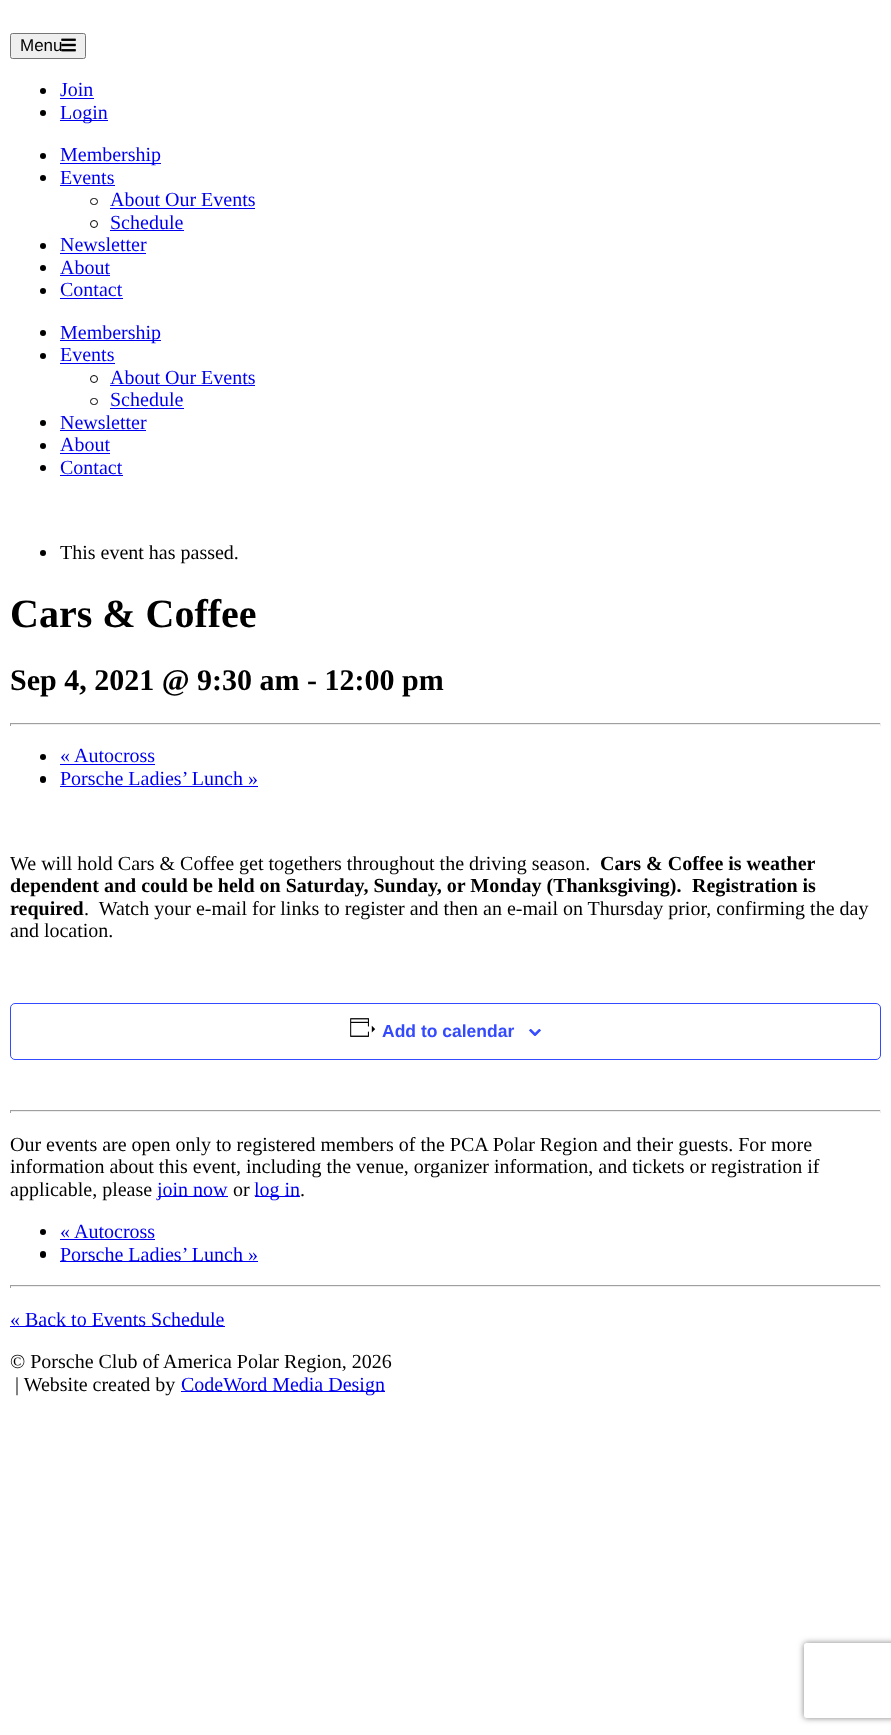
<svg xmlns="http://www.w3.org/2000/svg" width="891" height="1735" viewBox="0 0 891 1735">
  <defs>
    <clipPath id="clip1"><path d="M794 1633H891V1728H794ZM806.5 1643H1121.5C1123 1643 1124 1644 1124 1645.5V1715.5C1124 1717 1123 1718 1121.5 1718H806.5C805 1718 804 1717 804 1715.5V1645.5C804 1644 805 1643 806.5 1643Z" clip-rule="evenodd"/></clipPath>
    <filter id="blur1" x="-50%" y="-200%" width="200%" height="500%"><feGaussianBlur stdDeviation="3"/></filter>
  </defs>
  <rect width="100%" height="100%" fill="#ffffff"/>
  <rect x="10.5" y="33.5" width="75" height="25" rx="2" fill="#efefef" stroke="#767676"/>
  <text x="20" y="51" font-family="Liberation Sans" font-size="17" fill="#000000">Menu</text>
  <image x="61" y="38" width="15" height="14" href="img1.png"/>
  <circle cx="43" cy="91" r="3" fill="#000000"/>
  <text x="60" y="96" font-family="Liberation Serif" font-size="20" fill="#0000ee">Join</text>
  <rect x="60" y="98" width="34" height="1" fill="#0000ee"/>
  <circle cx="43" cy="113" r="3" fill="#000000"/>
  <rect x="60" y="120" width="48" height="1" fill="#0000ee"/>
  <text x="60" y="119" font-family="Liberation Serif" font-size="20" fill="#0000ee">Login</text>
  <circle cx="43" cy="156" r="3" fill="#000000"/>
  <rect x="60" y="163" width="101" height="1" fill="#0000ee"/>
  <text x="60" y="161" font-family="Liberation Serif" font-size="20" fill="#0000ee">Membership</text>
  <circle cx="43" cy="178" r="3" fill="#000000"/>
  <text x="60" y="184" font-family="Liberation Serif" font-size="20" fill="#0000ee">Events</text>
  <rect x="60" y="185" width="55" height="1" fill="#0000ee"/>
  <rect x="90.5" y="198.5" width="7" height="6" rx="3" fill="none" stroke="#000000"/>
  <text x="110" y="206" font-family="Liberation Serif" font-size="20" fill="#0000ee">About Our Events</text>
  <rect x="110" y="208" width="145" height="1" fill="#0000ee"/>
  <circle cx="94" cy="224" r="3.5" fill="none" stroke="#000000"/>
  <text x="110" y="229" font-family="Liberation Serif" font-size="20" fill="#0000ee">Schedule</text>
  <rect x="110" y="230" width="74" height="1" fill="#0000ee"/>
  <circle cx="43" cy="246" r="3" fill="#000000"/>
  <text x="60" y="251" font-family="Liberation Serif" font-size="20" fill="#0000ee">Newsletter</text>
  <rect x="60" y="253" width="86" height="1" fill="#0000ee"/>
  <circle cx="43" cy="268" r="3" fill="#000000"/>
  <text x="60" y="274" font-family="Liberation Serif" font-size="20" fill="#0000ee">About</text>
  <rect x="60" y="275" width="50" height="1" fill="#0000ee"/>
  <circle cx="43" cy="291" r="3" fill="#000000"/>
  <text x="60" y="296" font-family="Liberation Serif" font-size="20" fill="#0000ee">Contact</text>
  <rect x="60" y="298" width="63" height="1" fill="#0000ee"/>
  <circle cx="43" cy="333" r="3" fill="#000000"/>
  <rect x="60" y="340" width="101" height="1" fill="#0000ee"/>
  <text x="60" y="339" font-family="Liberation Serif" font-size="20" fill="#0000ee">Membership</text>
  <circle cx="43" cy="356" r="3" fill="#000000"/>
  <text x="60" y="361" font-family="Liberation Serif" font-size="20" fill="#0000ee">Events</text>
  <rect x="60" y="363" width="55" height="1" fill="#0000ee"/>
  <circle cx="94" cy="379" r="3.5" fill="none" stroke="#000000"/>
  <text x="110" y="384" font-family="Liberation Serif" font-size="20" fill="#0000ee">About Our Events</text>
  <rect x="110" y="385" width="145" height="1" fill="#0000ee"/>
  <rect x="90.5" y="398.5" width="7" height="6" rx="3" fill="none" stroke="#000000"/>
  <text x="110" y="406" font-family="Liberation Serif" font-size="20" fill="#0000ee">Schedule</text>
  <rect x="110" y="408" width="74" height="1" fill="#0000ee"/>
  <circle cx="43" cy="423" r="3" fill="#000000"/>
  <text x="60" y="429" font-family="Liberation Serif" font-size="20" fill="#0000ee">Newsletter</text>
  <rect x="60" y="430" width="86" height="1" fill="#0000ee"/>
  <circle cx="43" cy="446" r="3" fill="#000000"/>
  <text x="60" y="451" font-family="Liberation Serif" font-size="20" fill="#0000ee">About</text>
  <rect x="60" y="453" width="50" height="1" fill="#0000ee"/>
  <circle cx="43" cy="468" r="3" fill="#000000"/>
  <text x="60" y="474" font-family="Liberation Serif" font-size="20" fill="#0000ee">Contact</text>
  <rect x="60" y="475" width="63" height="1" fill="#0000ee"/>
  <circle cx="43" cy="553" r="3" fill="#000000"/>
  <text x="60" y="559" font-family="Liberation Serif" font-size="20" fill="#000000">This event has passed.</text>
  <text x="10" y="627" font-family="Liberation Serif" font-size="40" font-weight="bold" fill="#000000">Cars &amp; Coffee</text>
  <text x="10" y="690" font-family="Liberation Serif" font-size="30" font-weight="bold" fill="#000000">Sep 4, 2021 @ 9:30 am - 12:00 pm</text>
  <rect x="10" y="723" width="871" height="1" fill="#9f9f9f"/>
  <rect x="880" y="723" width="1" height="3" fill="#eeeeee"/>
  <rect x="10" y="724" width="871" height="1" fill="#eeeeee"/>
  <rect x="10" y="723" width="1" height="3" fill="#9f9f9f"/>
  <circle cx="43" cy="757" r="3" fill="#000000"/>
  <text x="60" y="762" font-family="Liberation Serif" font-size="20" fill="#0000ee">«</text>
  <rect x="60" y="764" width="95" height="1" fill="#0000ee"/>
  <text x="74" y="762" font-family="Liberation Serif" font-size="20" fill="#0000ee">Autocross</text>
  <rect x="40" y="776" width="6" height="7" rx="3" fill="#000000"/>
  <text x="60" y="785" font-family="Liberation Serif" font-size="20" fill="#0000ee">Porsche Ladies’ Lunch »</text>
  <rect x="60" y="786" width="198" height="1" fill="#0000ee"/>
  <text x="10" y="870" font-family="Liberation Serif" font-size="20" fill="#000000">We will hold Cars &amp; Coffee get togethers throughout the driving season.</text>
  <text x="600" y="870" font-family="Liberation Serif" font-size="20" font-weight="bold" fill="#000000">Cars &amp; Coffee is weather</text>
  <text x="10" y="892" font-family="Liberation Serif" font-size="20" font-weight="bold" fill="#000000">dependent and could be held on Saturday, Sunday, or Monday (Thanksgiving).</text>
  <text x="692" y="892" font-family="Liberation Serif" font-size="20" font-weight="bold" fill="#000000">Registration is</text>
  <text x="10" y="915" font-family="Liberation Serif" font-size="20" font-weight="bold" fill="#000000">required</text>
  <text x="84" y="915" font-family="Liberation Serif" font-size="20" fill="#000000" xml:space="preserve">.  Watch your e-mail for links to register and then an e-mail on Thursday prior, confirming the day</text>
  <text x="10" y="937" font-family="Liberation Serif" font-size="20" fill="#000000">and location.</text>
  <rect x="10.5" y="1003.5" width="870" height="56" rx="4.5" fill="none" stroke="#334aff"/>
  <image x="350" y="1018" width="26" height="19" href="img2.png"/>
  <text x="382" y="1037" font-family="Liberation Sans" font-size="17.5" font-weight="bold" fill="#334aff">Add to calendar</text>
  <image x="529" y="1029" width="12" height="7" href="img3.png"/>
  <rect x="10" y="1110" width="871" height="1" fill="#9f9f9f"/>
  <rect x="880" y="1110" width="1" height="3" fill="#eeeeee"/>
  <rect x="10" y="1111" width="871" height="1" fill="#eeeeee"/>
  <rect x="10" y="1110" width="1" height="3" fill="#9f9f9f"/>
  <text x="10" y="1151" font-family="Liberation Serif" font-size="20" fill="#000000">Our events are open only to registered members of the PCA Polar Region and their guests. For more</text>
  <text x="10" y="1173" font-family="Liberation Serif" font-size="20" fill="#000000">information about this event, including the venue, organizer information, and tickets or registration if</text>
  <text x="10" y="1196" font-family="Liberation Serif" font-size="20" fill="#000000">applicable, please</text>
  <rect x="158" y="1196" width="70" height="1" fill="#0000ee"/>
  <text x="157" y="1196" font-family="Liberation Serif" font-size="20" fill="#0000ee">join now</text>
  <text x="233" y="1196" font-family="Liberation Serif" font-size="20" fill="#000000">or</text>
  <rect x="255" y="1196" width="45" height="1" fill="#0000ee"/>
  <text x="254" y="1196" font-family="Liberation Serif" font-size="20" fill="#0000ee">log in</text>
  <text x="300" y="1196" font-family="Liberation Serif" font-size="20" fill="#000000">.</text>
  <circle cx="43" cy="1232" r="3" fill="#000000"/>
  <text x="60" y="1238" font-family="Liberation Serif" font-size="20" fill="#0000ee">«</text>
  <rect x="60" y="1239" width="95" height="1" fill="#0000ee"/>
  <text x="74" y="1238" font-family="Liberation Serif" font-size="20" fill="#0000ee">Autocross</text>
  <rect x="40" y="1251" width="6" height="7" rx="3" fill="#000000"/>
  <rect x="60" y="1261" width="198" height="1" fill="#0000ee"/>
  <text x="60" y="1261" font-family="Liberation Serif" font-size="20" fill="#0000ee">Porsche Ladies’ Lunch »</text>
  <rect x="10" y="1285" width="871" height="1" fill="#9f9f9f"/>
  <rect x="880" y="1285" width="1" height="3" fill="#eeeeee"/>
  <rect x="10" y="1286" width="871" height="1" fill="#eeeeee"/>
  <rect x="10" y="1285" width="1" height="3" fill="#9f9f9f"/>
  <rect x="10" y="1326" width="215" height="1" fill="#0000ee"/>
  <text x="10" y="1326" font-family="Liberation Serif" font-size="20" fill="#0000ee">« Back to Events Schedule</text>
  <text x="10" y="1368" font-family="Liberation Serif" font-size="20" fill="#000000">© Porsche Club of America Polar Region, 2026</text>
  <text x="15" y="1391" font-family="Liberation Serif" font-size="20" fill="#000000">| Website created by</text>
  <rect x="181" y="1391" width="204" height="1" fill="#0000ee"/>
  <text x="181" y="1391" font-family="Liberation Serif" font-size="20" fill="#0000ee">CodeWord Media Design</text>
  <g clip-path="url(#clip1)">
    <rect x="804" y="1643" width="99" height="75" rx="2.5" fill="#808080" filter="url(#blur1)"/>
  </g>
</svg>
